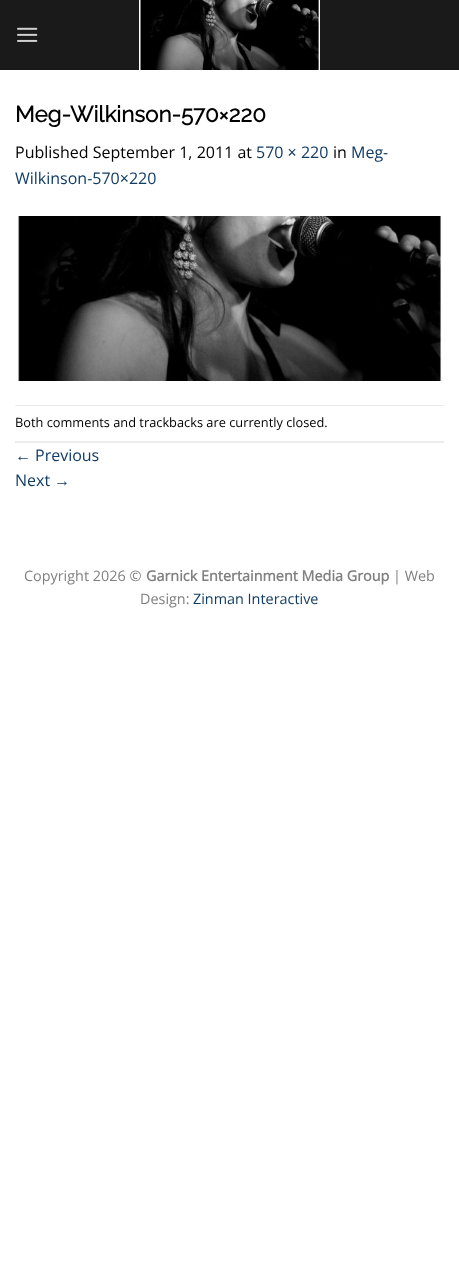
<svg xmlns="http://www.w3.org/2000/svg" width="459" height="1265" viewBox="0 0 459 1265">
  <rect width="100%" height="100%" fill="#ffffff"/>
  <rect x="0" y="0" width="459" height="70" fill="#1a1a1a"/>
  <image x="17" y="27" width="21" height="15" href="img1.png"/>
  <image x="139" y="0" width="181" height="70" href="img2.png"/>
  <text x="15" y="122" font-family="Raleway" font-size="22.4" font-weight="bold" fill="#000000">Meg-Wilkinson-570×220</text>
  <text x="15" y="158" font-family="Open Sans" font-size="16" fill="#000000">Published September 1, 2011 at</text>
  <text x="256" y="158" font-family="Open Sans" font-size="16" fill="#123d63">570 × 220</text>
  <text x="333" y="158" font-family="Open Sans" font-size="16" fill="#000000">in</text>
  <text x="351" y="158" font-family="Open Sans" font-size="16" fill="#123d63">Meg-</text>
  <text x="15" y="184" font-family="Open Sans" font-size="16" fill="#123d63">Wilkinson-570×220</text>
  <image x="18" y="216" width="424" height="165" href="img3.png"/>
  <rect x="15" y="405" width="429" height="1" fill="#ececec"/>
  <rect x="15" y="441" width="429" height="2" fill="#ececec"/>
  <text x="15" y="427" font-family="Open Sans" font-size="12.8" fill="#000000">Both comments and trackbacks are currently closed.</text>
  <text x="15" y="461" font-family="Liberation Sans" font-size="16" fill="#123d63">←</text>
  <text x="35" y="461" font-family="Open Sans" font-size="16" fill="#123d63">Previous</text>
  <text x="15" y="486" font-family="Open Sans" font-size="16" fill="#123d63">Next</text>
  <text x="54" y="486" font-family="Liberation Sans" font-size="16" fill="#123d63">→</text>
  <text x="24" y="581" font-family="Open Sans" font-size="14.4" fill="#808080">Copyright 2026 ©</text>
  <text x="146" y="581" font-family="Open Sans" font-size="14.4" font-weight="bold" fill="#808080">Garnick Entertainment Media Group</text>
  <text x="393" y="581" font-family="Open Sans" font-size="14.4" fill="#808080">| Web</text>
  <text x="140" y="604" font-family="Open Sans" font-size="14.4" fill="#808080">Design:</text>
  <text x="193" y="604" font-family="Open Sans" font-size="14.4" fill="#123d63">Zinman Interactive</text>
</svg>
